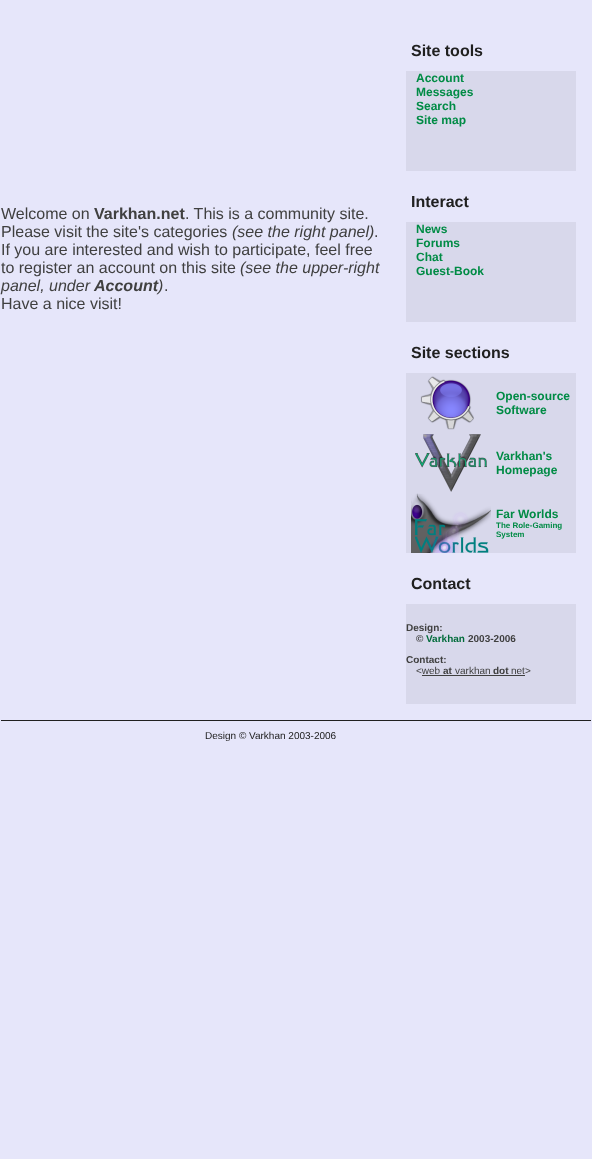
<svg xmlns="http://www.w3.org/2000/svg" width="592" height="1159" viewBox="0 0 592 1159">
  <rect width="100%" height="100%" fill="#e6e6fa"/>
  <text x="411" y="56" font-family="Liberation Sans" font-size="16" font-weight="bold" fill="#202020">Site tools</text>
  <rect x="406" y="71" width="170" height="100" fill="#d8d8eb"/>
  <text x="416" y="82" font-family="Liberation Sans" font-size="12" font-weight="bold" fill="#008b45">Account</text>
  <text x="416" y="96" font-family="Liberation Sans" font-size="12" font-weight="bold" fill="#008b45">Messages</text>
  <text x="416" y="110" font-family="Liberation Sans" font-size="12" font-weight="bold" fill="#008b45">Search</text>
  <text x="416" y="124" font-family="Liberation Sans" font-size="12" font-weight="bold" fill="#008b45">Site map</text>
  <text x="1" y="219" font-family="Liberation Sans" font-size="16" fill="#404040">Welcome on</text>
  <text x="94" y="219" font-family="Liberation Sans" font-size="16" font-weight="bold" fill="#404040">Varkhan.net</text>
  <text x="185" y="219" font-family="Liberation Sans" font-size="16" fill="#404040">. This is a community site.</text>
  <text x="1" y="237" font-family="Liberation Sans" font-size="16" fill="#404040">Please visit the site's categories</text>
  <text x="232" y="237" font-family="Liberation Sans" font-size="16" font-style="italic" fill="#404040">(see the right panel)</text>
  <text x="374" y="237" font-family="Liberation Sans" font-size="16" fill="#404040">.</text>
  <text x="1" y="255" font-family="Liberation Sans" font-size="16" fill="#404040">If you are interested and wish to participate, feel free</text>
  <text x="1" y="273" font-family="Liberation Sans" font-size="16" fill="#404040">to register an account on this site</text>
  <text x="240" y="273" font-family="Liberation Sans" font-size="16" font-style="italic" fill="#404040">(see the upper-right</text>
  <text x="1" y="291" font-family="Liberation Sans" font-size="16" font-style="italic" fill="#404040">panel, under</text>
  <text x="94" y="291" font-family="Liberation Sans" font-size="16" font-weight="bold" font-style="italic" fill="#404040">Account</text>
  <text x="158" y="291" font-family="Liberation Sans" font-size="16" font-style="italic" fill="#404040">)</text>
  <text x="164" y="291" font-family="Liberation Sans" font-size="16" fill="#404040">.</text>
  <text x="1" y="309" font-family="Liberation Sans" font-size="16" fill="#404040">Have a nice visit!</text>
  <text x="411" y="207" font-family="Liberation Sans" font-size="16" font-weight="bold" fill="#202020">Interact</text>
  <rect x="406" y="222" width="170" height="100" fill="#d8d8eb"/>
  <text x="416" y="233" font-family="Liberation Sans" font-size="12" font-weight="bold" fill="#008b45">News</text>
  <text x="416" y="247" font-family="Liberation Sans" font-size="12" font-weight="bold" fill="#008b45">Forums</text>
  <text x="416" y="261" font-family="Liberation Sans" font-size="12" font-weight="bold" fill="#008b45">Chat</text>
  <text x="416" y="275" font-family="Liberation Sans" font-size="12" font-weight="bold" fill="#008b45">Guest-Book</text>
  <text x="411" y="358" font-family="Liberation Sans" font-size="16" font-weight="bold" fill="#202020">Site sections</text>
  <rect x="406" y="373" width="170" height="180" fill="#d8d8eb"/>
  <image x="420" y="376" width="54" height="54" href="img1.png"/>
  <text x="496" y="400" font-family="Liberation Sans" font-size="12" font-weight="bold" fill="#008b45">Open-source</text>
  <text x="496" y="414" font-family="Liberation Sans" font-size="12" font-weight="bold" fill="#008b45">Software</text>
  <image x="415" y="434" width="72" height="58" href="img2.png"/>
  <text x="496" y="460" font-family="Liberation Sans" font-size="12" font-weight="bold" fill="#008b45">Varkhan's</text>
  <text x="496" y="474" font-family="Liberation Sans" font-size="12" font-weight="bold" fill="#008b45">Homepage</text>
  <image x="411" y="493" width="80" height="60" href="img3.png"/>
  <text x="496" y="518" font-family="Liberation Sans" font-size="12" font-weight="bold" fill="#008b45">Far Worlds</text>
  <text x="496" y="528" font-family="Liberation Sans" font-size="8" font-weight="bold" fill="#008b45">The Role-Gaming</text>
  <text x="496" y="537" font-family="Liberation Sans" font-size="8" font-weight="bold" fill="#008b45">System</text>
  <text x="411" y="589" font-family="Liberation Sans" font-size="16" font-weight="bold" fill="#202020">Contact</text>
  <rect x="406" y="604" width="170" height="100" fill="#d8d8eb"/>
  <text x="406" y="631" font-family="Liberation Sans" font-size="10" font-weight="bold" fill="#404040">Design:</text>
  <text x="416" y="642" font-family="Liberation Sans" font-size="10" font-weight="bold" fill="#404040">©</text>
  <text x="426" y="642" font-family="Liberation Sans" font-size="10" font-weight="bold" fill="#006b3a">Varkhan</text>
  <text x="468" y="642" font-family="Liberation Sans" font-size="10" font-weight="bold" fill="#404040">2003-2006</text>
  <text x="406" y="663" font-family="Liberation Sans" font-size="10" font-weight="bold" fill="#404040">Contact:</text>
  <text x="416" y="674" font-family="Liberation Sans" font-size="10" fill="#404040">&lt;web</text>
  <text x="443" y="674" font-family="Liberation Sans" font-size="10" font-weight="bold" fill="#404040">at</text>
  <rect x="422" y="675" width="103" height="1" fill="#404040"/>
  <text x="455" y="674" font-family="Liberation Sans" font-size="10" fill="#404040">varkhan</text>
  <text x="493" y="674" font-family="Liberation Sans" font-size="10" font-weight="bold" fill="#404040">dot</text>
  <text x="511" y="674" font-family="Liberation Sans" font-size="10" fill="#404040">net&gt;</text>
  <rect x="1" y="720" width="590" height="1" fill="#202020"/>
  <text x="205" y="739" font-family="Liberation Sans" font-size="10" fill="#202020">Design © Varkhan 2003-2006</text>
</svg>
